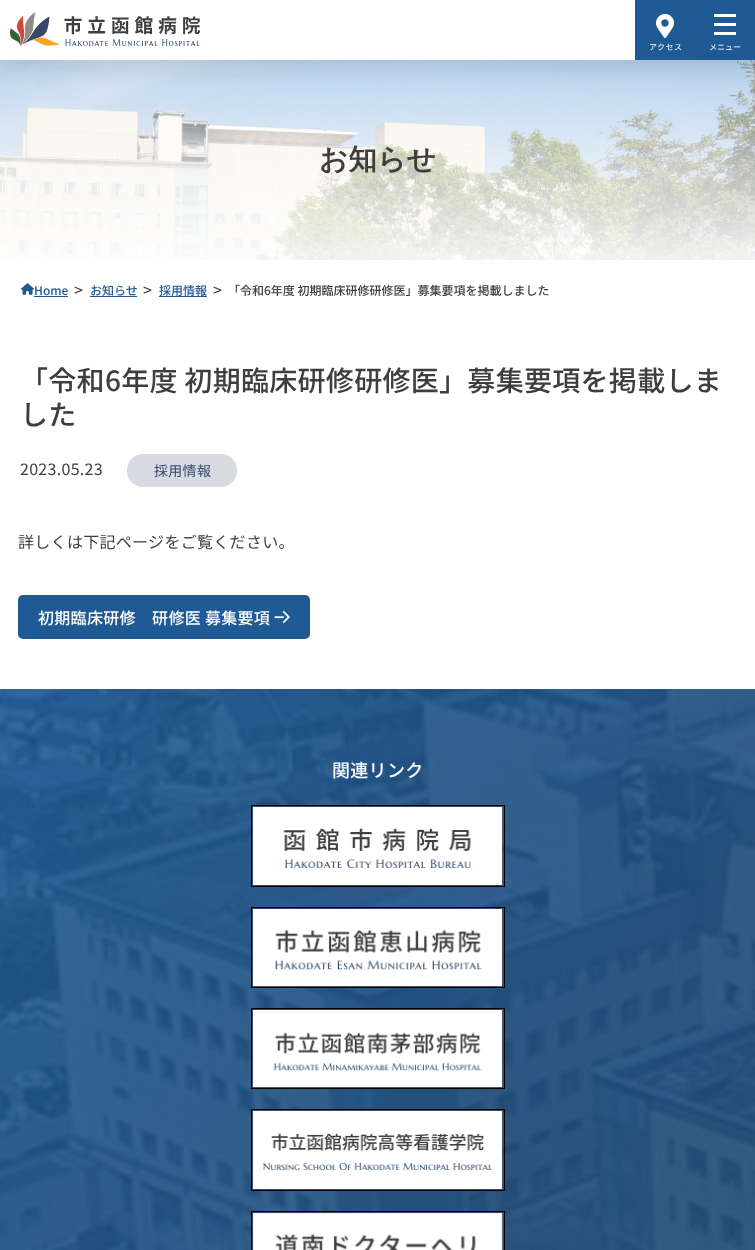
<svg xmlns="http://www.w3.org/2000/svg" width="755" height="1250" viewBox="0 0 755 1250">
  <defs>
    <filter id="blur1" x="-50%" y="-200%" width="200%" height="500%"><feGaussianBlur stdDeviation="10"/></filter>
  </defs>
  <rect width="100%" height="100%" fill="#ffffff"/>
  <image x="0" y="60" width="755" height="200" href="img3.png"/>
  <rect x="0" y="10" width="755" height="60" fill="#000000" fill-opacity="0.1" filter="url(#blur1)"/>
  <rect x="0" y="0" width="635" height="60" fill="#ffffff"/>
  <image x="10" y="12" width="190" height="35" href="img1.png"/>
  <rect x="635" y="0" width="120" height="60" fill="#205a94"/>
  <image x="656" y="14" width="18" height="24" href="img2.png"/>
  <text x="649" y="50" font-family="Noto Sans JP" font-size="8" letter-spacing="0.5" fill="#ffffff">アクセス</text>
  <rect x="714" y="14" width="22" height="3" fill="#ffffff"/>
  <rect x="714" y="23" width="22" height="3" fill="#ffffff"/>
  <rect x="714" y="32" width="22" height="3" fill="#ffffff"/>
  <text x="709" y="50" font-family="Noto Sans JP" font-size="8" fill="#ffffff">メニュー</text>
  <text x="319" y="169" font-family="WenQuanYi Zen Hei" font-size="28.5" font-weight="bold" letter-spacing="0.3" fill="#3e3e3e">お知らせ</text>
  <image x="21" y="283" width="13" height="12" href="img4.png"/>
  <text x="34" y="295" font-family="Noto Sans JP" font-size="12" font-weight="500" fill="#205a94">Home</text>
  <rect x="34" y="296" width="34" height="1" fill="#205a94"/>
  <text x="74" y="296" font-family="Noto Sans JP" font-size="16" letter-spacing="0.3" fill="#3e3e3e">&gt;</text>
  <text x="90" y="295" font-family="Noto Sans JP" font-size="12" font-weight="500" fill="#205a94">お知らせ</text>
  <rect x="90" y="296" width="47" height="1" fill="#205a94"/>
  <text x="143" y="296" font-family="Noto Sans JP" font-size="16" letter-spacing="0.3" fill="#3e3e3e">&gt;</text>
  <rect x="159" y="296" width="48" height="1" fill="#205a94"/>
  <text x="159" y="295" font-family="Noto Sans JP" font-size="12" font-weight="500" fill="#205a94">採用情報</text>
  <text x="213" y="296" font-family="Noto Sans JP" font-size="16" letter-spacing="0.3" fill="#3e3e3e">&gt;</text>
  <text x="228" y="295" font-family="Noto Sans JP" font-size="12" font-weight="500" fill="#3e3e3e">「令和6年度 初期臨床研修研修医」募集要項を掲載しました</text>
  <text x="20" y="391" font-family="Noto Sans JP" font-size="28" font-weight="500" letter-spacing="0.3" fill="#3e3e3e">「令和6年度 初期臨床研修研修医」募集要項を掲載しま</text>
  <text x="20" y="425" font-family="Noto Sans JP" font-size="28" font-weight="500" letter-spacing="0.3" fill="#3e3e3e">した</text>
  <text x="20" y="475" font-family="Noto Sans JP" font-size="16" letter-spacing="0.3" fill="#3e3e3e">2023.05.23</text>
  <rect x="127" y="454" width="110" height="33" rx="16" fill="#d7dae1"/>
  <text x="154" y="476" font-family="Noto Sans JP" font-size="14" letter-spacing="0.3" fill="#35486a">採用情報</text>
  <text x="18" y="548" font-family="Noto Sans JP" font-size="16" letter-spacing="0.3" fill="#3e3e3e">詳しくは下記ページをご覧ください。</text>
  <rect x="18" y="595" width="292" height="44" rx="5" fill="#205a94"/>
  <text x="38" y="624" font-family="Noto Sans JP" font-size="16" font-weight="500" letter-spacing="0.3" fill="#ffffff">初期臨床研修　研修医 募集要項</text>
  <image x="274" y="611" width="16" height="12" href="img5.png"/>
  <image x="0" y="689" width="755" height="561" href="img6.png"/>
  <text x="332" y="777" font-family="Noto Sans JP" font-size="18" font-weight="500" letter-spacing="0.3" fill="#ffffff">関連リンク</text>
  <rect x="251.5" y="805.5" width="253" height="81" fill="none" stroke="#000000"/>
  <image x="252" y="806" width="251" height="80" href="img7.png"/>
  <rect x="251.5" y="907.5" width="253" height="80" fill="none" stroke="#000000"/>
  <image x="252" y="908" width="251" height="79" href="img8.png"/>
  <rect x="251.5" y="1008.5" width="253" height="80" fill="none" stroke="#000000"/>
  <image x="252" y="1009" width="251" height="79" href="img9.png"/>
  <rect x="251.5" y="1109.5" width="253" height="81" fill="none" stroke="#000000"/>
  <image x="252" y="1110" width="251" height="80" href="img10.png"/>
  <rect x="251.5" y="1211.5" width="253" height="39" fill="none" stroke="#000000"/>
  <image x="252" y="1212" width="252" height="38" href="img11.png"/>
</svg>
